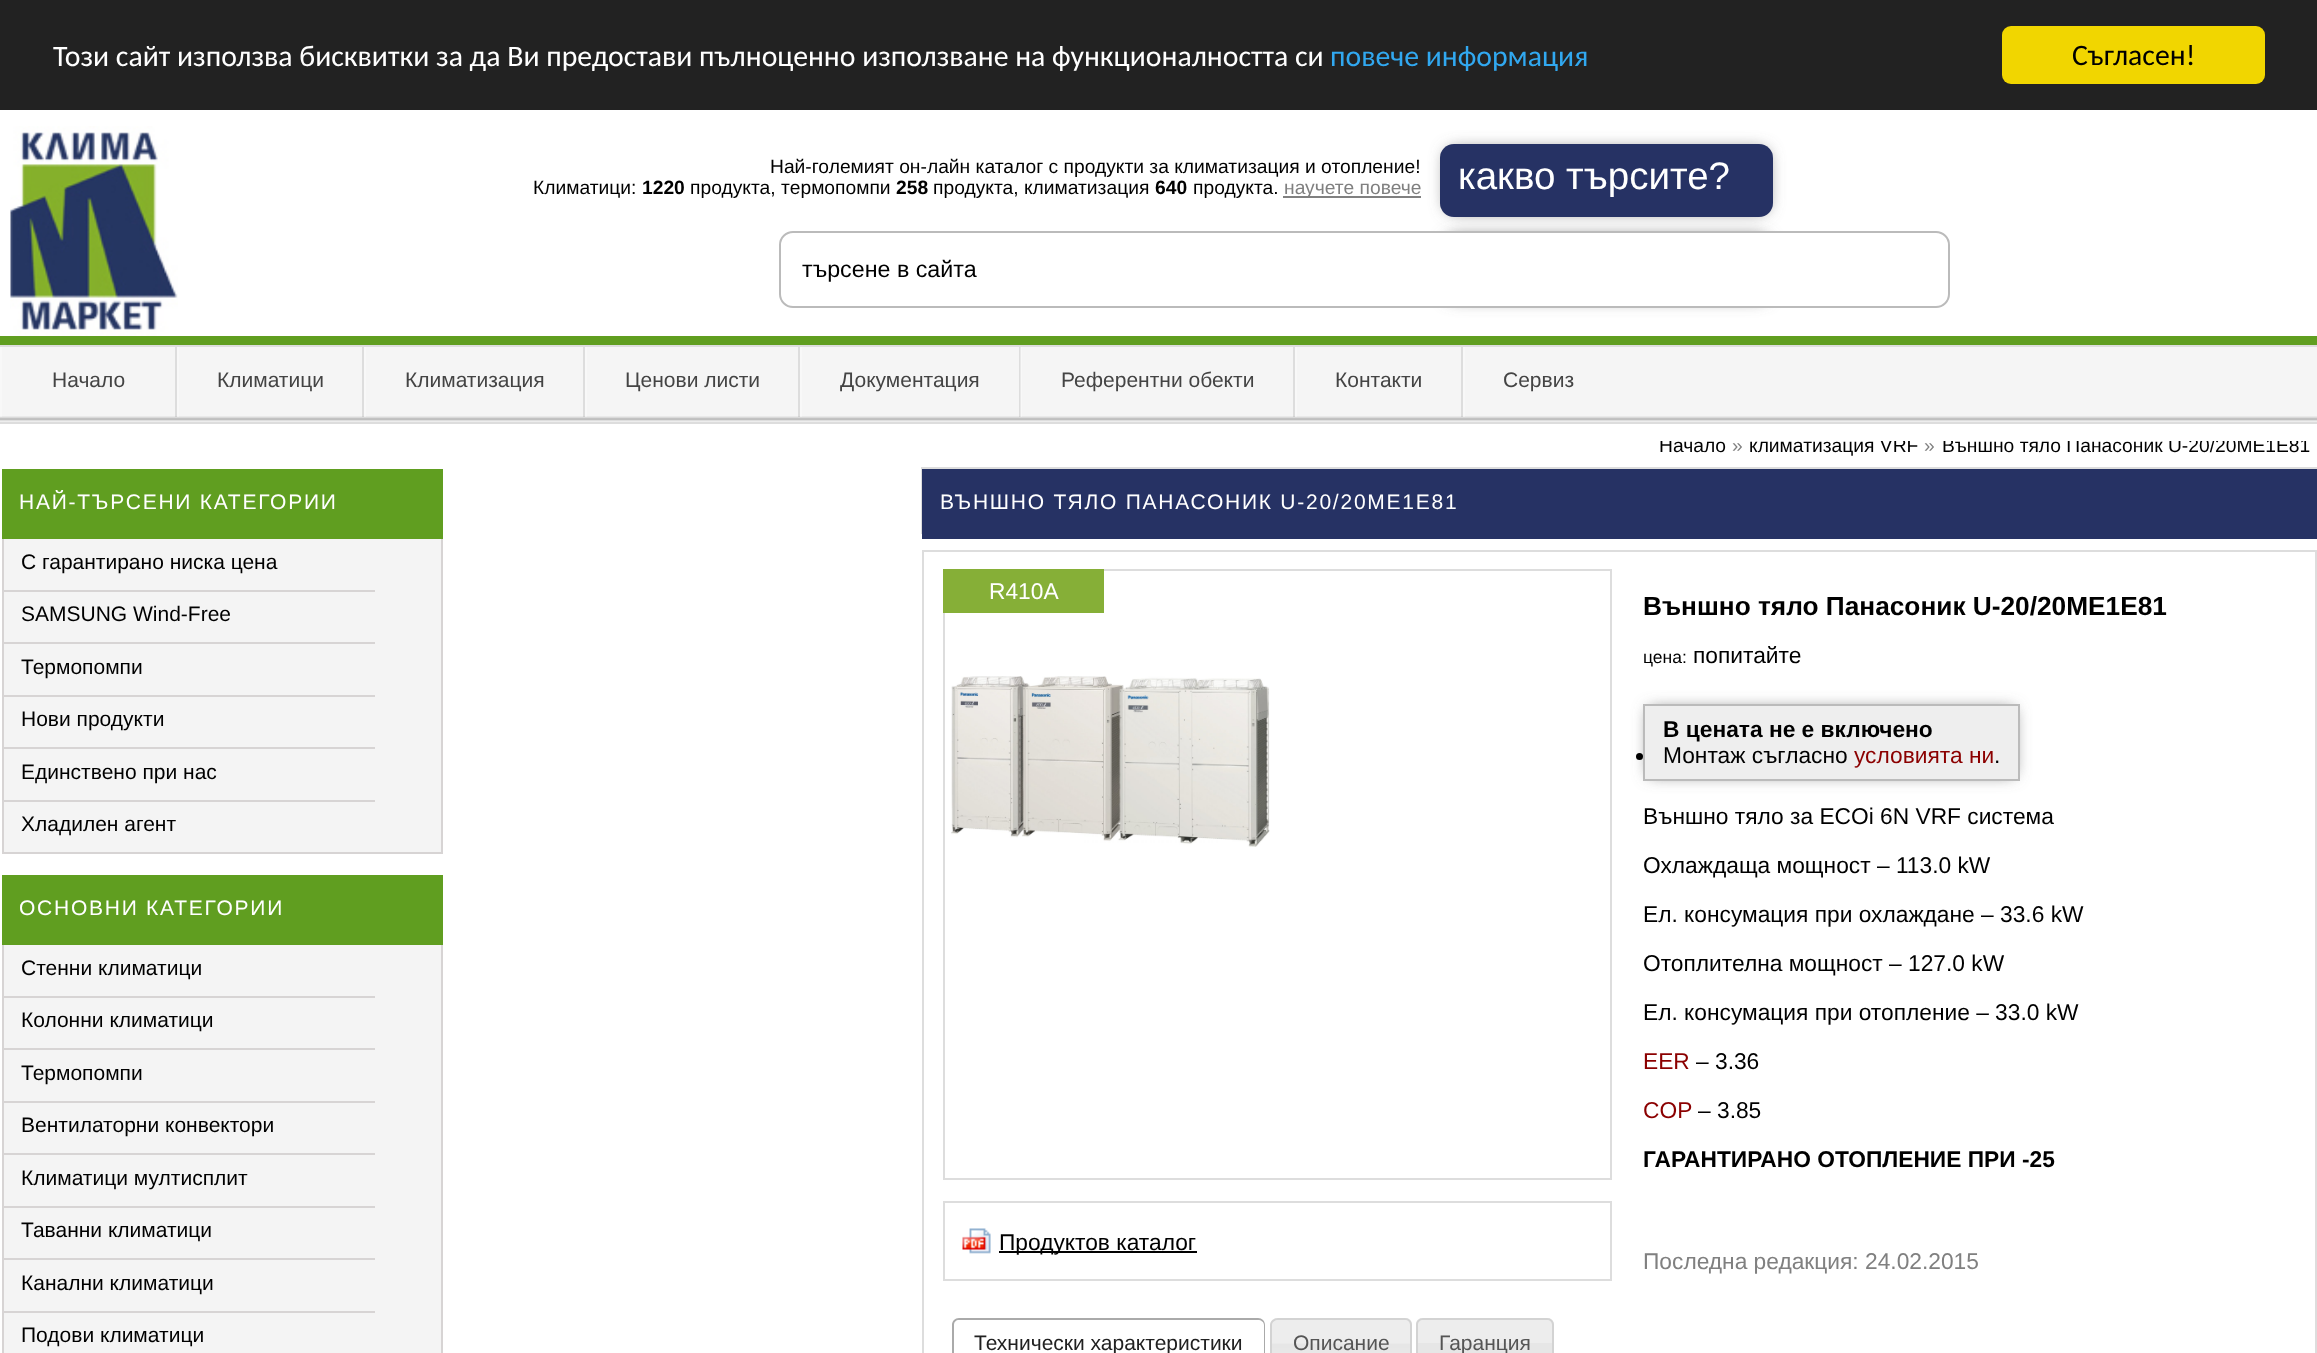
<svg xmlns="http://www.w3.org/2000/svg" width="2317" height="1353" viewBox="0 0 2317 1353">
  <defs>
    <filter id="blur1" x="-50%" y="-200%" width="200%" height="500%"><feGaussianBlur stdDeviation="8"/></filter>
    <clipPath id="clip1"><rect x="0" y="441" width="2317" height="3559"/></clipPath>
  </defs>
  <rect width="100%" height="100%" fill="#ffffff"/>
  <rect x="0" y="0" width="2317" height="110" fill="#222222"/>
  <text x="53" y="66" font-family="Carlito" font-size="29.75" fill="#ffffff">Този сайт използва бисквитки за да Ви предостави пълноценно използване на функционалността си</text>
  <text x="1330" y="66" font-family="Carlito" font-size="29.75" fill="#31a8f0">повече информация</text>
  <rect x="2002" y="26" width="263" height="58" rx="9" fill="#f1d600"/>
  <text x="2072" y="65" font-family="Carlito" font-size="29.75" fill="#000000">Съгласен!</text>
  <image x="10" y="126" width="168" height="210" href="img1.png"/>
  <text x="770" y="173" font-family="Liberation Sans" font-size="19.25" fill="#000000">Най-големият он-лайн каталог с продукти за климатизация и отопление!</text>
  <text x="533" y="194" font-family="Liberation Sans" font-size="19.25" fill="#000000">Климатици:</text>
  <text x="642" y="194" font-family="Liberation Sans" font-size="19.25" font-weight="bold" fill="#000000">1220</text>
  <text x="690" y="194" font-family="Liberation Sans" font-size="19.25" fill="#000000">продукта, тeрмопомпи</text>
  <text x="896" y="194" font-family="Liberation Sans" font-size="19.25" font-weight="bold" fill="#000000">258</text>
  <text x="933" y="194" font-family="Liberation Sans" font-size="19.25" fill="#000000">продукта, климатизация</text>
  <text x="1155" y="194" font-family="Liberation Sans" font-size="19.25" font-weight="bold" fill="#000000">640</text>
  <text x="1193" y="194" font-family="Liberation Sans" font-size="19.25" fill="#000000">продукта.</text>
  <rect x="1283" y="196" width="138" height="2" fill="#808080"/>
  <text x="1284" y="194" font-family="Liberation Sans" font-size="19.25" fill="#808080">научете повече</text>
  <rect x="1446" y="149" width="322" height="63" rx="9" fill="#777777" filter="url(#blur1)"/>
  <rect x="1440" y="144" width="333" height="73" rx="14" fill="#263264"/>
  <text x="1458" y="189" font-family="Liberation Sans" font-size="38.5" fill="#ffffff">какво търсите?</text>
  <rect x="1446" y="236" width="322" height="63" rx="9" fill="#777777" filter="url(#blur1)"/>
  <rect x="780" y="232" width="1169" height="75" rx="13" fill="#ffffff" stroke="#bbbbbb" stroke-width="2"/>
  <text x="802" y="277" font-family="Liberation Sans" font-size="23.25" fill="#000000">търсене в сайта</text>
  <rect x="0" y="336" width="2317" height="9" fill="#609e20"/>
  <rect x="0" y="347" width="2317" height="69" fill="#f5f5f5"/>
  <image x="0" y="416" width="2317" height="6" href="img2.png"/>
  <rect x="0" y="345" width="2317" height="2" fill="#dddddd"/>
  <rect x="0" y="422" width="2317" height="2" fill="#dddddd"/>
  <rect x="175" y="347" width="2" height="70" fill="#0a0a0a" fill-opacity="0.1"/>
  <rect x="0" y="347" width="2" height="70" fill="#ffffff" fill-opacity="0.35"/>
  <text x="52" y="387" font-family="Liberation Sans" font-size="21" fill="#444444">Начало</text>
  <rect x="362" y="347" width="2" height="70" fill="#0a0a0a" fill-opacity="0.1"/>
  <rect x="177" y="347" width="2" height="70" fill="#ffffff" fill-opacity="0.35"/>
  <text x="217" y="387" font-family="Liberation Sans" font-size="21" fill="#444444">Климатици</text>
  <rect x="583" y="347" width="2" height="70" fill="#0a0a0a" fill-opacity="0.1"/>
  <rect x="364" y="347" width="2" height="70" fill="#ffffff" fill-opacity="0.35"/>
  <text x="405" y="387" font-family="Liberation Sans" font-size="21" fill="#444444">Климатизация</text>
  <rect x="798" y="347" width="2" height="70" fill="#0a0a0a" fill-opacity="0.1"/>
  <rect x="585" y="347" width="2" height="70" fill="#ffffff" fill-opacity="0.35"/>
  <text x="625" y="387" font-family="Liberation Sans" font-size="21" fill="#444444">Ценови листи</text>
  <rect x="1019" y="347" width="2" height="70" fill="#0a0a0a" fill-opacity="0.1"/>
  <rect x="800" y="347" width="2" height="70" fill="#ffffff" fill-opacity="0.35"/>
  <text x="840" y="387" font-family="Liberation Sans" font-size="21" fill="#444444">Документация</text>
  <rect x="1293" y="347" width="2" height="70" fill="#0a0a0a" fill-opacity="0.1"/>
  <rect x="1020" y="347" width="2" height="70" fill="#ffffff" fill-opacity="0.35"/>
  <text x="1061" y="387" font-family="Liberation Sans" font-size="21" fill="#444444">Референтни обекти</text>
  <rect x="1461" y="347" width="2" height="70" fill="#0a0a0a" fill-opacity="0.1"/>
  <rect x="1295" y="347" width="2" height="70" fill="#ffffff" fill-opacity="0.35"/>
  <text x="1335" y="387" font-family="Liberation Sans" font-size="21" fill="#444444">Контакти</text>
  <rect x="1463" y="347" width="2" height="70" fill="#ffffff" fill-opacity="0.35"/>
  <text x="1503" y="387" font-family="Liberation Sans" font-size="21" fill="#444444">Сервиз</text>
  <g clip-path="url(#clip1)">
    <text x="1659" y="452" font-family="Liberation Sans" font-size="19.25" fill="#000000">Начало</text>
  </g>
  <text x="1732" y="452" font-family="Liberation Sans" font-size="19.25" fill="#808080">»</text>
  <g clip-path="url(#clip1)">
    <text x="1749" y="452" font-family="Liberation Sans" font-size="19.25" fill="#000000">климатизация VRF</text>
  </g>
  <text x="1924" y="452" font-family="Liberation Sans" font-size="19.25" fill="#808080">»</text>
  <g clip-path="url(#clip1)">
    <text x="1942" y="452" font-family="Liberation Sans" font-size="19.25" fill="#000000">Външно тяло Панасоник U-20/20ME1E81</text>
  </g>
  <rect x="4" y="539" width="437" height="313" fill="#f4f4f4"/>
  <rect x="3" y="470" width="439" height="383" fill="none" stroke="#d7d4d4" stroke-width="2"/>
  <rect x="2" y="469" width="441" height="70" fill="#609e20"/>
  <text x="19" y="509" font-family="Liberation Sans" font-size="21" letter-spacing="1.75" fill="#ffffff">НАЙ-ТЪРСЕНИ КАТЕГОРИИ</text>
  <text x="21" y="569" font-family="Liberation Sans" font-size="21" fill="#000000">С гарантирано ниска цена</text>
  <rect x="4" y="590" width="371" height="2" fill="#d7d4d4"/>
  <text x="21" y="621" font-family="Liberation Sans" font-size="21" fill="#000000">SAMSUNG Wind-Free</text>
  <rect x="4" y="642" width="371" height="2" fill="#d7d4d4"/>
  <text x="21" y="674" font-family="Liberation Sans" font-size="21" fill="#000000">Термопомпи</text>
  <rect x="4" y="695" width="371" height="2" fill="#d7d4d4"/>
  <text x="21" y="726" font-family="Liberation Sans" font-size="21" fill="#000000">Нови продукти</text>
  <rect x="4" y="747" width="371" height="2" fill="#d7d4d4"/>
  <text x="21" y="779" font-family="Liberation Sans" font-size="21" fill="#000000">Единствено при нас</text>
  <rect x="4" y="800" width="371" height="2" fill="#d7d4d4"/>
  <text x="21" y="831" font-family="Liberation Sans" font-size="21" fill="#000000">Хладилен агент</text>
  <rect x="4" y="945" width="437" height="408" fill="#f4f4f4"/>
  <rect x="3" y="876" width="439" height="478" fill="none" stroke="#d7d4d4" stroke-width="2"/>
  <rect x="2" y="875" width="441" height="70" fill="#609e20"/>
  <text x="19" y="915" font-family="Liberation Sans" font-size="21" letter-spacing="1.75" fill="#ffffff">ОСНОВНИ КАТЕГОРИИ</text>
  <text x="21" y="975" font-family="Liberation Sans" font-size="21" fill="#000000">Стенни климатици</text>
  <rect x="4" y="996" width="371" height="2" fill="#d7d4d4"/>
  <text x="21" y="1027" font-family="Liberation Sans" font-size="21" fill="#000000">Колонни климатици</text>
  <rect x="4" y="1048" width="371" height="2" fill="#d7d4d4"/>
  <text x="21" y="1080" font-family="Liberation Sans" font-size="21" fill="#000000">Термопомпи</text>
  <rect x="4" y="1101" width="371" height="2" fill="#d7d4d4"/>
  <text x="21" y="1132" font-family="Liberation Sans" font-size="21" fill="#000000">Вентилаторни конвектори</text>
  <rect x="4" y="1153" width="371" height="2" fill="#d7d4d4"/>
  <text x="21" y="1185" font-family="Liberation Sans" font-size="21" fill="#000000">Климатици мултисплит</text>
  <rect x="4" y="1206" width="371" height="2" fill="#d7d4d4"/>
  <text x="21" y="1237" font-family="Liberation Sans" font-size="21" fill="#000000">Таванни климатици</text>
  <rect x="4" y="1258" width="371" height="2" fill="#d7d4d4"/>
  <text x="21" y="1290" font-family="Liberation Sans" font-size="21" fill="#000000">Канални климатици</text>
  <rect x="4" y="1311" width="371" height="2" fill="#d7d4d4"/>
  <text x="21" y="1342" font-family="Liberation Sans" font-size="21" fill="#000000">Подови климатици</text>
  <rect x="922" y="468" width="1394" height="65" fill="none" stroke="#dddddd" stroke-width="2"/>
  <rect x="922" y="469" width="1395" height="70" fill="#263264"/>
  <text x="940" y="509" font-family="Liberation Sans" font-size="21" letter-spacing="1.75" fill="#ffffff">ВЪНШНО ТЯЛО ПАНАСОНИК U-20/20ME1E81</text>
  <rect x="923" y="551" width="1393" height="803" fill="none" stroke="#dddddd" stroke-width="2"/>
  <rect x="944" y="570" width="667" height="609" fill="none" stroke="#dddddd" stroke-width="2"/>
  <rect x="943" y="569" width="161" height="44" fill="#86af37"/>
  <text x="989" y="599" font-family="Liberation Sans" font-size="22.75" fill="#ffffff">R410A</text>
  <image x="951" y="676" width="319" height="171" href="img3.png"/>
  <rect x="944" y="1202" width="667" height="78" fill="none" stroke="#dddddd" stroke-width="2"/>
  <image x="962" y="1228" width="29" height="26" href="img4.png"/>
  <rect x="999" y="1251" width="198" height="2" fill="#000000"/>
  <text x="999" y="1250" font-family="Liberation Sans" font-size="22.75" fill="#000000">Продуктов каталог</text>
  <text x="1643" y="615" font-family="Liberation Sans" font-size="26.25" font-weight="bold" fill="#000000">Външно тяло Панасоник U-20/20ME1E81</text>
  <text x="1643" y="663" font-family="Liberation Sans" font-size="17.5" fill="#000000">цена:</text>
  <text x="1693" y="663" font-family="Liberation Sans" font-size="22.75" fill="#000000">попитайте</text>
  <rect x="1649" y="709" width="365" height="66" fill="#777777" filter="url(#blur1)"/>
  <rect x="1644" y="705" width="375" height="75" fill="#eeeeee" stroke="#bbbbbb" stroke-width="2"/>
  <text x="1663" y="737" font-family="Liberation Sans" font-size="22.75" font-weight="bold" fill="#000000">В цената не е включено</text>
  <circle cx="1639.5" cy="756.5" r="3.5" fill="#000000"/>
  <text x="1663" y="763" font-family="Liberation Sans" font-size="22.75" fill="#000000">Монтаж съгласно</text>
  <text x="1854" y="763" font-family="Liberation Sans" font-size="22.75" fill="#8b0000">условията ни</text>
  <text x="1994" y="763" font-family="Liberation Sans" font-size="22.75" fill="#000000">.</text>
  <text x="1643" y="824" font-family="Liberation Sans" font-size="22.75" fill="#000000">Външно тяло за ECOi 6N VRF система</text>
  <text x="1643" y="873" font-family="Liberation Sans" font-size="22.75" fill="#000000">Охлаждаща мощност – 113.0 kW</text>
  <text x="1643" y="922" font-family="Liberation Sans" font-size="22.75" fill="#000000">Ел. консумация при охлаждане – 33.6 kW</text>
  <text x="1643" y="971" font-family="Liberation Sans" font-size="22.75" fill="#000000">Oтоплителна мощност – 127.0 kW</text>
  <text x="1643" y="1020" font-family="Liberation Sans" font-size="22.75" fill="#000000">Ел. консумация при отопление – 33.0 kW</text>
  <text x="1643" y="1069" font-family="Liberation Sans" font-size="22.75" fill="#8b0000">EER</text>
  <text x="1696" y="1069" font-family="Liberation Sans" font-size="22.75" fill="#000000">– 3.36</text>
  <text x="1643" y="1118" font-family="Liberation Sans" font-size="22.75" fill="#8b0000">COP</text>
  <text x="1698" y="1118" font-family="Liberation Sans" font-size="22.75" fill="#000000">– 3.85</text>
  <text x="1643" y="1167" font-family="Liberation Sans" font-size="22.75" font-weight="bold" fill="#000000">ГАРАНТИРАНО ОТОПЛЕНИЕ ПРИ -25</text>
  <text x="1643" y="1269" font-family="Liberation Sans" font-size="22.75" fill="#808080">Последна редакция: 24.02.2015</text>
  <path d="M959 1318H1258C1262 1318 1265 1321 1265 1325V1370H952V1325C952 1321 955 1318 959 1318ZM959 1320H1258C1261 1320 1264 1322 1264 1325V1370H954V1325C954 1322 956 1320 959 1320Z" fill="#aaaaaa" fill-rule="evenodd"/>
  <text x="974" y="1350" font-family="Liberation Sans" font-size="21" fill="#212121">Технически характеристики</text>
  <image x="1270" y="1318" width="142" height="35" href="img5.png"/>
  <path d="M1278 1318H1405C1409 1318 1412 1321 1412 1325V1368H1270V1325C1270 1321 1274 1318 1278 1318ZM1278 1320H1405C1408 1320 1410 1322 1410 1325V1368H1272V1325C1272 1322 1275 1320 1278 1320Z" fill="#d3d3d3" fill-rule="evenodd"/>
  <text x="1293" y="1350" font-family="Liberation Sans" font-size="21" fill="#555555">Описание</text>
  <path d="M1423 1318H1547C1551 1318 1554 1321 1554 1325V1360H1416V1325C1416 1321 1419 1318 1423 1318Z" fill="#e6e6e6"/>
  <image x="1416" y="1318" width="138" height="25" href="img6.png"/>
  <path d="M1423 1318H1547C1551 1318 1554 1321 1554 1325V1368H1416V1325C1416 1321 1419 1318 1423 1318ZM1423 1320H1547C1550 1320 1552 1322 1552 1325V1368H1418V1325C1418 1322 1420 1320 1423 1320Z" fill="#d3d3d3" fill-rule="evenodd"/>
  <text x="1439" y="1350" font-family="Liberation Sans" font-size="21" fill="#555555">Гаранция</text>
</svg>
